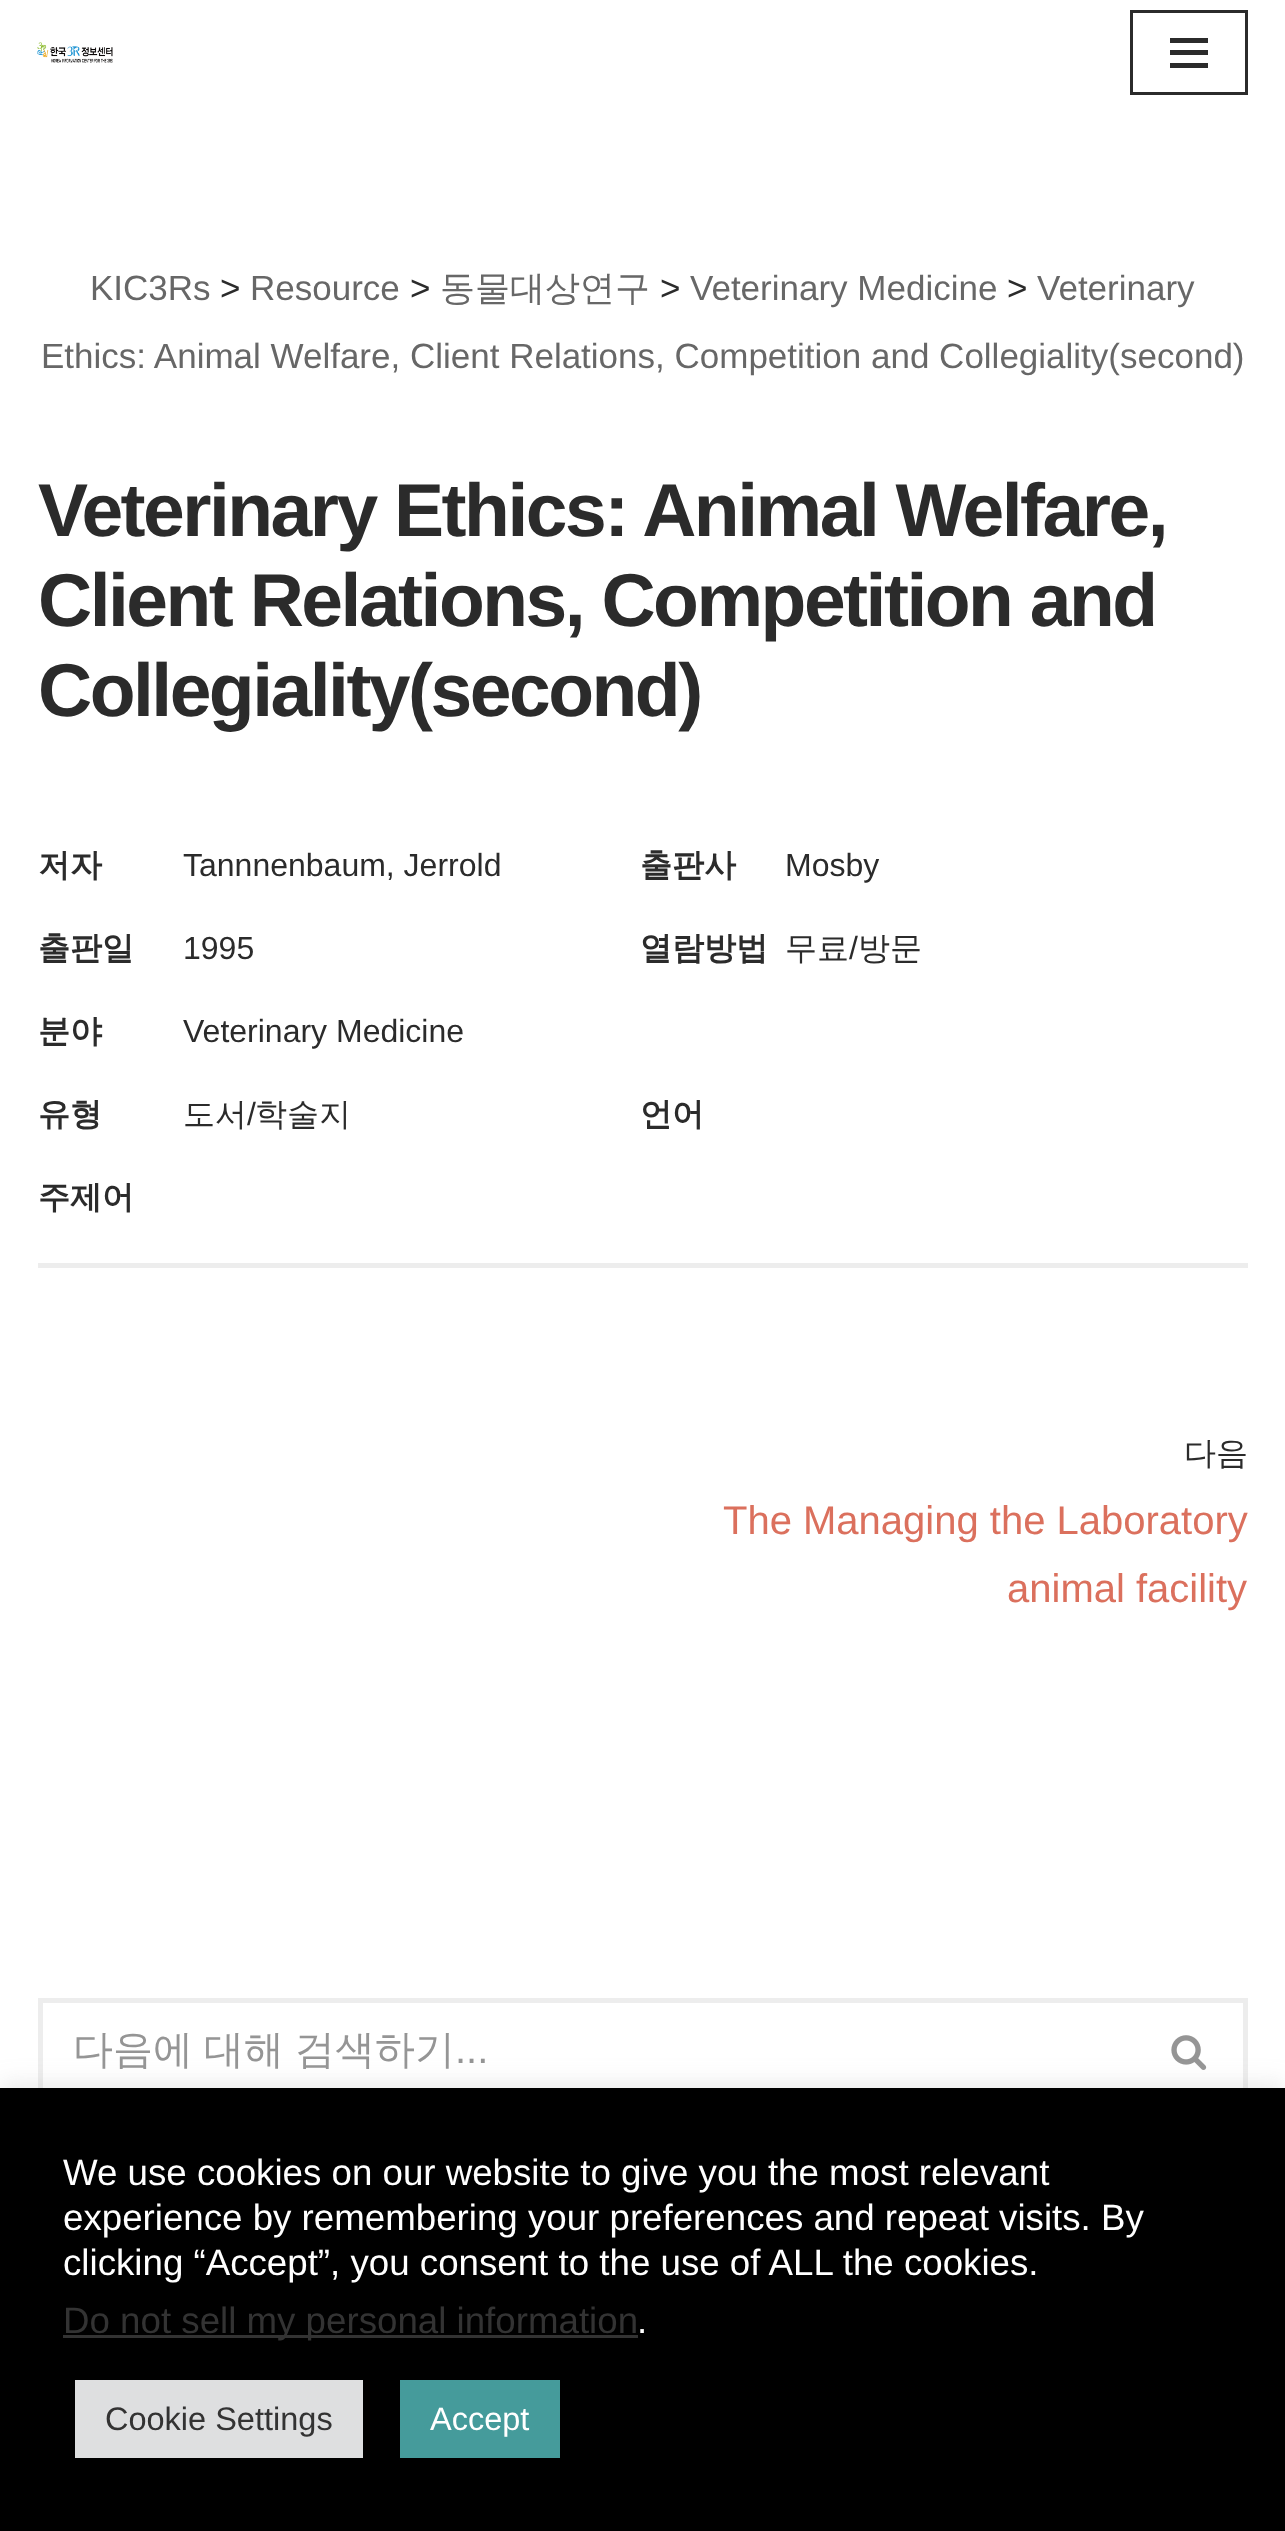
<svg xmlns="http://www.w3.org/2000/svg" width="1285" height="2531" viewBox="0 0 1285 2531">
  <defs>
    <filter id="blur1" x="-50%" y="-200%" width="200%" height="500%"><feGaussianBlur stdDeviation="12.5"/></filter>
  </defs>
  <rect width="100%" height="100%" fill="#ffffff"/>
  <image x="37" y="42" width="76" height="21" href="img1.png"/>
  <rect x="1131.5" y="11.5" width="115" height="82" fill="none" stroke="#2b2b2b" stroke-width="3"/>
  <rect x="1170" y="38" width="38" height="5" fill="#2b2b2b"/>
  <rect x="1170" y="50" width="38" height="5" fill="#2b2b2b"/>
  <rect x="1170" y="63" width="38" height="5" fill="#2b2b2b"/>
  <text x="90" y="300" font-family="Liberation Sans" font-size="35" fill="#676767">KIC3Rs</text>
  <text x="220" y="300" font-family="Liberation Sans" font-size="35" fill="#2b2b2b">&gt;</text>
  <text x="250" y="300" font-family="Liberation Sans" font-size="35" fill="#676767">Resource</text>
  <text x="410" y="300" font-family="Liberation Sans" font-size="35" fill="#2b2b2b">&gt;</text>
  <text x="440" y="300" font-family="WenQuanYi Zen Hei" font-size="35" font-weight="500" fill="#676767">동물대상연구</text>
  <text x="660" y="300" font-family="Liberation Sans" font-size="35" fill="#2b2b2b">&gt;</text>
  <text x="690" y="300" font-family="Liberation Sans" font-size="35" fill="#676767">Veterinary Medicine</text>
  <text x="1007" y="300" font-family="Liberation Sans" font-size="35" fill="#2b2b2b">&gt;</text>
  <text x="1037" y="300" font-family="Liberation Sans" font-size="35" fill="#676767">Veterinary</text>
  <text x="41" y="368" font-family="Liberation Sans" font-size="35" fill="#676767">Ethics: Animal Welfare, Client Relations, Competition and Collegiality(second)</text>
  <text x="38" y="536" font-family="Liberation Sans" font-size="75" font-weight="bold" letter-spacing="-2.5" fill="#2b2b2b">Veterinary Ethics: Animal Welfare,</text>
  <text x="38" y="626" font-family="Liberation Sans" font-size="75" font-weight="bold" letter-spacing="-2.5" fill="#2b2b2b">Client Relations, Competition and</text>
  <text x="38" y="716" font-family="Liberation Sans" font-size="75" font-weight="bold" letter-spacing="-2.5" fill="#2b2b2b">Collegiality(second)</text>
  <rect x="38" y="1263" width="1210" height="5" fill="#ededed"/>
  <text x="38" y="876" font-family="WenQuanYi Zen Hei" font-size="32" font-weight="bold" fill="#2b2b2b">저자</text>
  <text x="183" y="876" font-family="Liberation Sans" font-size="32" fill="#2b2b2b">Tannnenbaum, Jerrold</text>
  <text x="640" y="876" font-family="WenQuanYi Zen Hei" font-size="32" font-weight="bold" fill="#2b2b2b">출판사</text>
  <text x="785" y="876" font-family="Liberation Sans" font-size="32" fill="#2b2b2b">Mosby</text>
  <text x="38" y="959" font-family="WenQuanYi Zen Hei" font-size="32" font-weight="bold" fill="#2b2b2b">출판일</text>
  <text x="183" y="959" font-family="Liberation Sans" font-size="32" fill="#2b2b2b">1995</text>
  <text x="640" y="959" font-family="WenQuanYi Zen Hei" font-size="32" font-weight="bold" fill="#2b2b2b">열람방법</text>
  <text x="785" y="959" font-family="WenQuanYi Zen Hei" font-size="32" font-weight="500" fill="#2b2b2b">무료</text>
  <text x="849" y="959" font-family="Liberation Sans" font-size="32" fill="#2b2b2b">/</text>
  <text x="858" y="959" font-family="WenQuanYi Zen Hei" font-size="32" font-weight="500" fill="#2b2b2b">방문</text>
  <text x="38" y="1042" font-family="WenQuanYi Zen Hei" font-size="32" font-weight="bold" fill="#2b2b2b">분야</text>
  <text x="183" y="1042" font-family="Liberation Sans" font-size="32" fill="#2b2b2b">Veterinary Medicine</text>
  <text x="38" y="1125" font-family="WenQuanYi Zen Hei" font-size="32" font-weight="bold" fill="#2b2b2b">유형</text>
  <text x="183" y="1125" font-family="WenQuanYi Zen Hei" font-size="32" font-weight="500" fill="#2b2b2b">도서</text>
  <text x="247" y="1125" font-family="Liberation Sans" font-size="32" fill="#2b2b2b">/</text>
  <text x="255" y="1125" font-family="WenQuanYi Zen Hei" font-size="32" font-weight="500" fill="#2b2b2b">학술지</text>
  <text x="640" y="1125" font-family="WenQuanYi Zen Hei" font-size="32" font-weight="bold" fill="#2b2b2b">언어</text>
  <text x="38" y="1208" font-family="WenQuanYi Zen Hei" font-size="32" font-weight="bold" fill="#2b2b2b">주제어</text>
  <text x="1184" y="1464" font-family="WenQuanYi Zen Hei" font-size="32" font-weight="500" fill="#2b2b2b">다음</text>
  <text x="723" y="1534" font-family="Liberation Sans" font-size="40" fill="#db705d">The Managing the Laboratory</text>
  <text x="1007" y="1602" font-family="Liberation Sans" font-size="40" fill="#db705d">animal facility</text>
  <rect x="38" y="1998" width="1210" height="5" fill="#ededed"/>
  <rect x="38" y="1998" width="5" height="90" fill="#ededed"/>
  <text x="73" y="2063" word-spacing="-1" font-family="WenQuanYi Zen Hei" font-size="40" font-weight="500" fill="#959595">다음에 대해 검색하기</text>
  <text x="455" y="2063" font-family="Liberation Sans" font-size="40" fill="#959595">...</text>
  <rect x="1243" y="1998" width="5" height="90" fill="#ededed"/>
  <image x="1171" y="2035" width="36" height="35" href="img2.png"/>
  <rect x="0" y="2085" width="1285" height="445" fill="#acabab" fill-opacity="0.3" filter="url(#blur1)"/>
  <rect x="0" y="2088" width="1285" height="443" fill="#000000"/>
  <text x="63" y="2185" font-family="Liberation Sans" font-size="36.7" fill="#ffffff">We use cookies on our website to give you the most relevant</text>
  <text x="63" y="2230" font-family="Liberation Sans" font-size="36.7" fill="#ffffff">experience by remembering your preferences and repeat visits. By</text>
  <text x="63" y="2275" font-family="Liberation Sans" font-size="36.7" fill="#ffffff">clicking “Accept”, you consent to the use of ALL the cookies.</text>
  <rect x="63" y="2335" width="575" height="3" fill="#333333"/>
  <text x="63" y="2333" font-family="Liberation Sans" font-size="36.7" fill="#333333">Do not sell my personal information</text>
  <text x="637" y="2333" font-family="Liberation Sans" font-size="36.7" fill="#ffffff">.</text>
  <rect x="75" y="2380" width="288" height="78" fill="#dedfe0"/>
  <text x="105" y="2430" font-family="Liberation Sans" font-size="32.5" fill="#333333">Cookie Settings</text>
  <rect x="400" y="2380" width="160" height="78" fill="#459b9b"/>
  <text x="430" y="2430" font-family="Liberation Sans" font-size="32.5" fill="#ffffff">Accept</text>
</svg>
